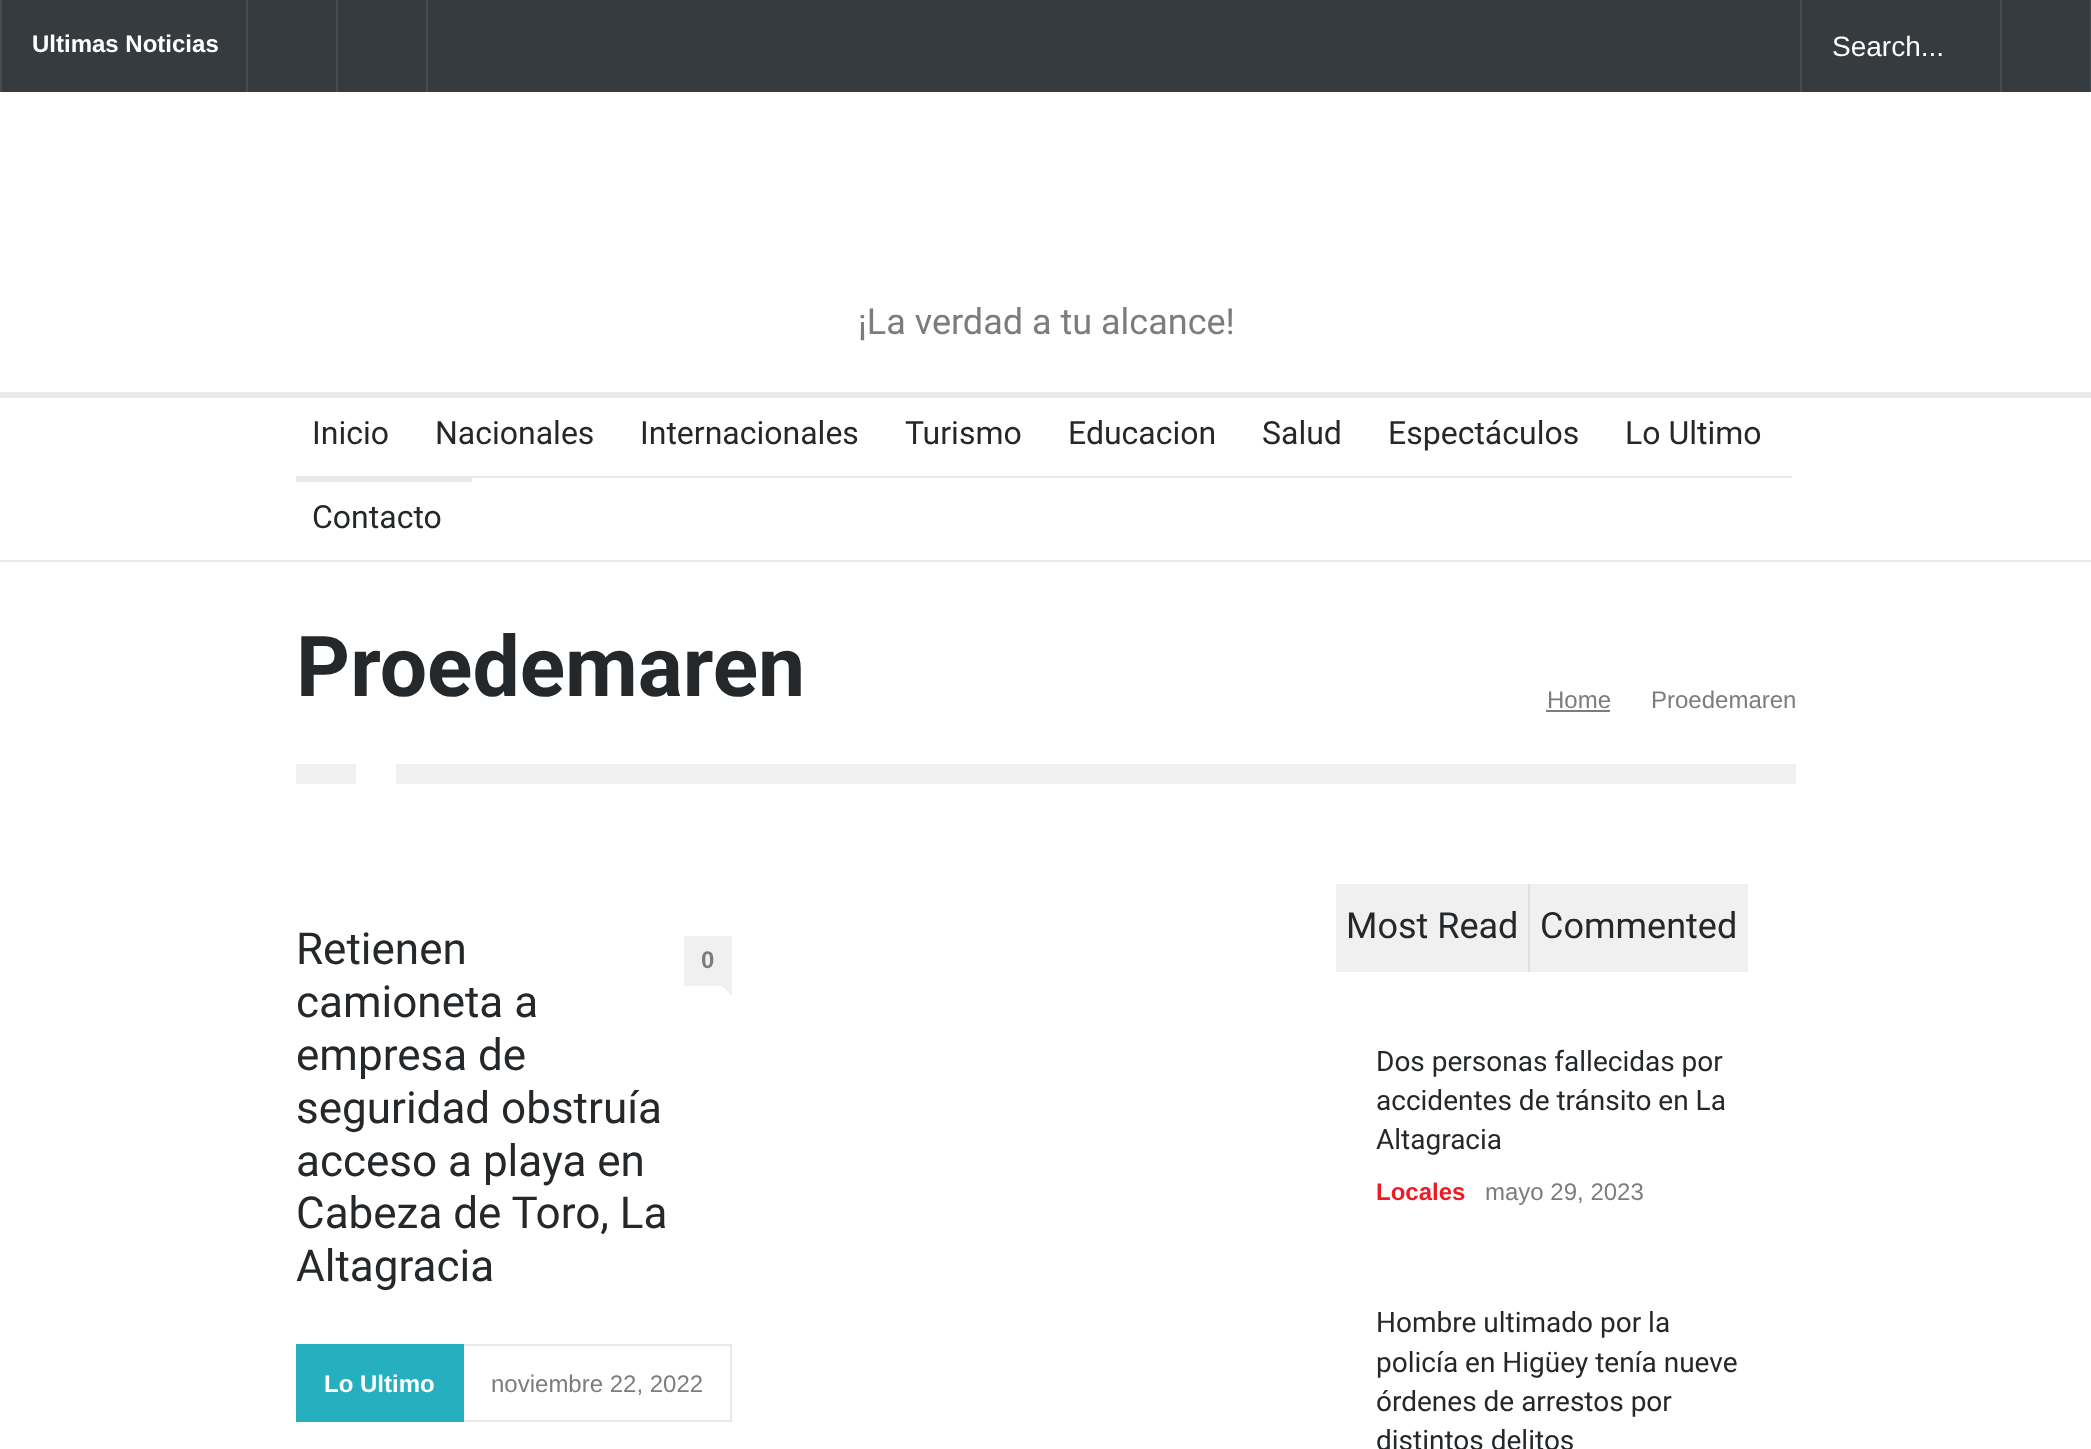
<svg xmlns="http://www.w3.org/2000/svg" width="2091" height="1449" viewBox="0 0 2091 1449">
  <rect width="100%" height="100%" fill="#ffffff"/>
  <rect x="2" y="0" width="2088" height="92" fill="#363b40"/>
  <rect x="246" y="0" width="2" height="92" fill="#464d53"/>
  <rect x="0" y="0" width="2" height="92" fill="#464d53"/>
  <text x="32" y="52" font-family="Liberation Sans" font-size="24" font-weight="bold" fill="#ffffff">Ultimas Noticias</text>
  <rect x="336" y="0" width="2" height="92" fill="#464d53"/>
  <rect x="426" y="0" width="2" height="92" fill="#464d53"/>
  <rect x="2090" y="0" width="1" height="92" fill="#464d53"/>
  <rect x="1800" y="0" width="2" height="92" fill="#464d53"/>
  <rect x="2000" y="0" width="2" height="92" fill="#464d53"/>
  <text x="1832" y="56" font-family="Liberation Sans" font-size="28" fill="#ffffff">Search...</text>
  <text x="858" y="334" font-family="Roboto" font-size="36" fill="#7c7c7c">¡La verdad a tu alcance!</text>
  <rect x="0" y="392" width="2091" height="6" fill="#e9e9e9"/>
  <rect x="0" y="560" width="2091" height="2" fill="#e9e9e9"/>
  <text x="312" y="444" font-family="Roboto" font-size="32" fill="#25282a">Inicio</text>
  <rect x="472" y="476" width="1320" height="2" fill="#e9e9e9"/>
  <text x="435" y="444" font-family="Roboto" font-size="32" fill="#25282a">Nacionales</text>
  <text x="640" y="444" font-family="Roboto" font-size="32" fill="#25282a">Internacionales</text>
  <text x="905" y="444" font-family="Roboto" font-size="32" fill="#25282a">Turismo</text>
  <text x="1068" y="444" font-family="Roboto" font-size="32" fill="#25282a">Educacion</text>
  <text x="1262" y="444" font-family="Roboto" font-size="32" fill="#25282a">Salud</text>
  <text x="1388" y="444" font-family="Roboto" font-size="32" fill="#25282a">Espectáculos</text>
  <text x="1625" y="444" font-family="Roboto" font-size="32" fill="#25282a">Lo Ultimo</text>
  <rect x="296" y="476" width="176" height="6" fill="#e9e9e9"/>
  <text x="312" y="528" font-family="Roboto" font-size="32" fill="#25282a">Contacto</text>
  <text x="296" y="696" font-family="Roboto" font-size="84" font-weight="bold" fill="#25282a">Proedemaren</text>
  <text x="1547" y="708" font-family="Liberation Sans" font-size="24" fill="#7c7c7c">Home</text>
  <rect x="1546" y="710" width="64" height="2" fill="#7c7c7c"/>
  <text x="1651" y="708" font-family="Liberation Sans" font-size="24" fill="#7c7c7c">Proedemaren</text>
  <rect x="296" y="764" width="60" height="20" fill="#f0f0f0"/>
  <rect x="396" y="764" width="1400" height="20" fill="#f0f0f0"/>
  <text x="296" y="964" font-family="Roboto" font-size="44" fill="#25282a">Retienen</text>
  <text x="296" y="1017" font-family="Roboto" font-size="44" fill="#25282a">camioneta a</text>
  <text x="296" y="1070" font-family="Roboto" font-size="44" fill="#25282a">empresa de</text>
  <text x="296" y="1123" font-family="Roboto" font-size="44" fill="#25282a">seguridad obstruía</text>
  <text x="296" y="1176" font-family="Roboto" font-size="44" fill="#25282a">acceso a playa en</text>
  <text x="296" y="1228" font-family="Roboto" font-size="44" fill="#25282a">Cabeza de Toro, La</text>
  <text x="296" y="1281" font-family="Roboto" font-size="44" fill="#25282a">Altagracia</text>
  <rect x="684" y="936" width="48" height="50" fill="#f0f0f0"/>
  <text x="701" y="968" font-family="Liberation Sans" font-size="24" font-weight="bold" fill="#7c7c7c">0</text>
  <path d="M722 986H732V996Z" fill="#f0f0f0"/>
  <rect x="296" y="1344" width="168" height="78" fill="#26b0bf"/>
  <text x="324" y="1392" font-family="Liberation Sans" font-size="24" font-weight="bold" fill="#ffffff">Lo Ultimo</text>
  <rect x="464" y="1344" width="268" height="2" fill="#e9e9e9"/>
  <rect x="730" y="1344" width="2" height="78" fill="#e9e9e9"/>
  <rect x="464" y="1420" width="268" height="2" fill="#e9e9e9"/>
  <text x="491" y="1392" font-family="Liberation Sans" font-size="24" fill="#7c7c7c">noviembre 22, 2022</text>
  <rect x="1336" y="884" width="192" height="88" fill="#f0f0f0"/>
  <rect x="1528" y="884" width="2" height="88" fill="#e0e0e0"/>
  <text x="1346" y="938" font-family="Roboto" font-size="36" fill="#25282a">Most Read</text>
  <rect x="1530" y="884" width="218" height="88" fill="#f0f0f0"/>
  <text x="1540" y="938" font-family="Roboto" font-size="36" fill="#25282a">Commented</text>
  <text x="1376" y="1071" font-family="Roboto" font-size="28" fill="#25282a">Dos personas fallecidas por</text>
  <text x="1376" y="1110" font-family="Roboto" font-size="28" fill="#25282a">accidentes de tránsito en La</text>
  <text x="1376" y="1149" font-family="Roboto" font-size="28" fill="#25282a">Altagracia</text>
  <text x="1376" y="1200" font-family="Liberation Sans" font-size="24" font-weight="bold" fill="#ed1c24">Locales</text>
  <text x="1485" y="1200" font-family="Liberation Sans" font-size="24" fill="#7c7c7c">mayo 29, 2023</text>
  <text x="1376" y="1332" font-family="Roboto" font-size="28" fill="#25282a">Hombre ultimado por la</text>
  <text x="1376" y="1372" font-family="Roboto" font-size="28" fill="#25282a">policía en Higüey tenía nueve</text>
  <text x="1376" y="1411" font-family="Roboto" font-size="28" fill="#25282a">órdenes de arrestos por</text>
  <text x="1376" y="1450" font-family="Roboto" font-size="28" fill="#25282a">distintos delitos</text>
</svg>
